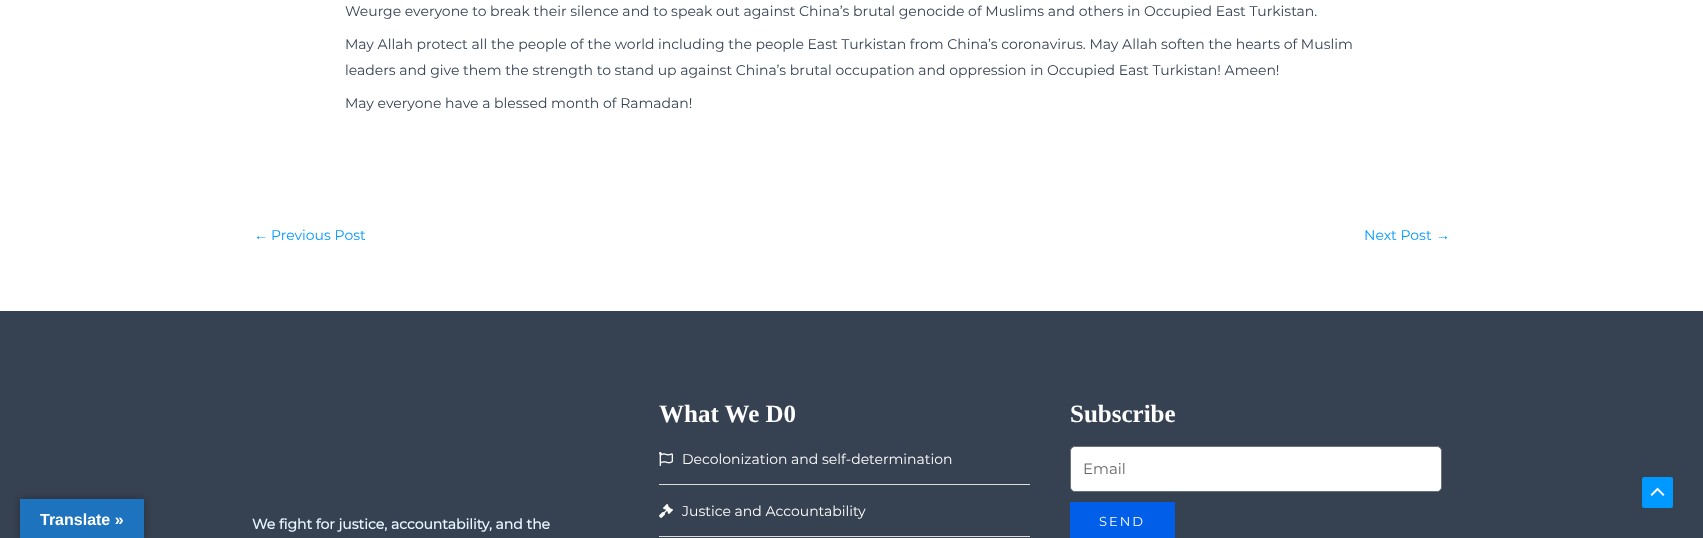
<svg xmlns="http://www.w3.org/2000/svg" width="1703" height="538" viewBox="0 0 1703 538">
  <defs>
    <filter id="blur1" x="-50%" y="-200%" width="200%" height="500%"><feGaussianBlur stdDeviation="4.5"/></filter>
  </defs>
  <rect width="100%" height="100%" fill="#ffffff"/>
  <text x="345" y="16" font-family="Montserrat" font-size="14" font-weight="100" fill="#364151">Weurge everyone to break their silence and to speak out against China’s brutal genocide of Muslims and others in Occupied East Turkistan.</text>
  <text x="345" y="49" font-family="Montserrat" font-size="14" font-weight="100" fill="#364151">May Allah protect all the people of the world including the people East Turkistan from China’s coronavirus. May Allah soften the hearts of Muslim</text>
  <text x="345" y="75" font-family="Montserrat" font-size="14" font-weight="100" fill="#364151">leaders and give them the strength to stand up against China’s brutal occupation and oppression in Occupied East Turkistan! Ameen!</text>
  <text x="345" y="108" font-family="Montserrat" font-size="14" font-weight="100" fill="#364151">May everyone have a blessed month of Ramadan!</text>
  <text x="254" y="240" font-family="Liberation Sans" font-size="14" fill="#0099ff">←</text>
  <text x="271" y="240" font-family="Montserrat" font-size="14" font-weight="100" fill="#0099ff">Previous Post</text>
  <text x="1364" y="240" font-family="Montserrat" font-size="14" font-weight="100" fill="#0099ff">Next Post</text>
  <text x="1436" y="240" font-family="Liberation Sans" font-size="14" fill="#0099ff">→</text>
  <rect x="0" y="311" width="1703" height="227" fill="#364151"/>
  <text x="252" y="529" font-family="Montserrat" font-size="14" font-weight="bold" fill="#e7f6ff">We fight for justice, accountability, and the</text>
  <text x="659" y="422" font-family="Liberation Serif" font-size="25" font-weight="bold" fill="#ffffff">What We D0</text>
  <image x="659" y="452" width="14" height="14" href="img1.png"/>
  <text x="682" y="464" font-family="Montserrat" font-size="14" font-weight="100" fill="#ffffff">Decolonization and self-determination</text>
  <rect x="659" y="484" width="371" height="1" fill="#dddddd"/>
  <image x="659" y="504" width="14" height="14" href="img2.png"/>
  <text x="682" y="516" font-family="Montserrat" font-size="14" font-weight="100" fill="#ffffff">Justice and Accountability</text>
  <rect x="659" y="536" width="371" height="1" fill="#dddddd"/>
  <text x="1070" y="422" font-family="Liberation Serif" font-size="25" font-weight="bold" fill="#ffffff">Subscribe</text>
  <rect x="1070.5" y="446.5" width="371" height="45" rx="4.5" fill="#ffffff" stroke="#69727d"/>
  <text x="1083" y="474" font-family="Montserrat" font-size="15" font-weight="100" fill="#666666">Email</text>
  <rect x="1070" y="502" width="105" height="36" fill="#005ee9"/>
  <text x="1099" y="526" font-family="Montserrat" font-size="13" font-weight="100" letter-spacing="2" fill="#ffffff">SEND</text>
  <rect x="1642" y="477" width="31" height="31" rx="2" fill="#0099ff"/>
  <image x="1650" y="487" width="15" height="9" href="img3.png"/>
  <rect x="20" y="499" width="124" height="39" fill="#000000" fill-opacity="0.3" filter="url(#blur1)"/>
  <rect x="20" y="499" width="124" height="39" fill="#1e73be"/>
  <text x="40" y="525" font-family="Liberation Sans" font-size="16" font-weight="bold" fill="#ffffff">Translate »</text>
</svg>
